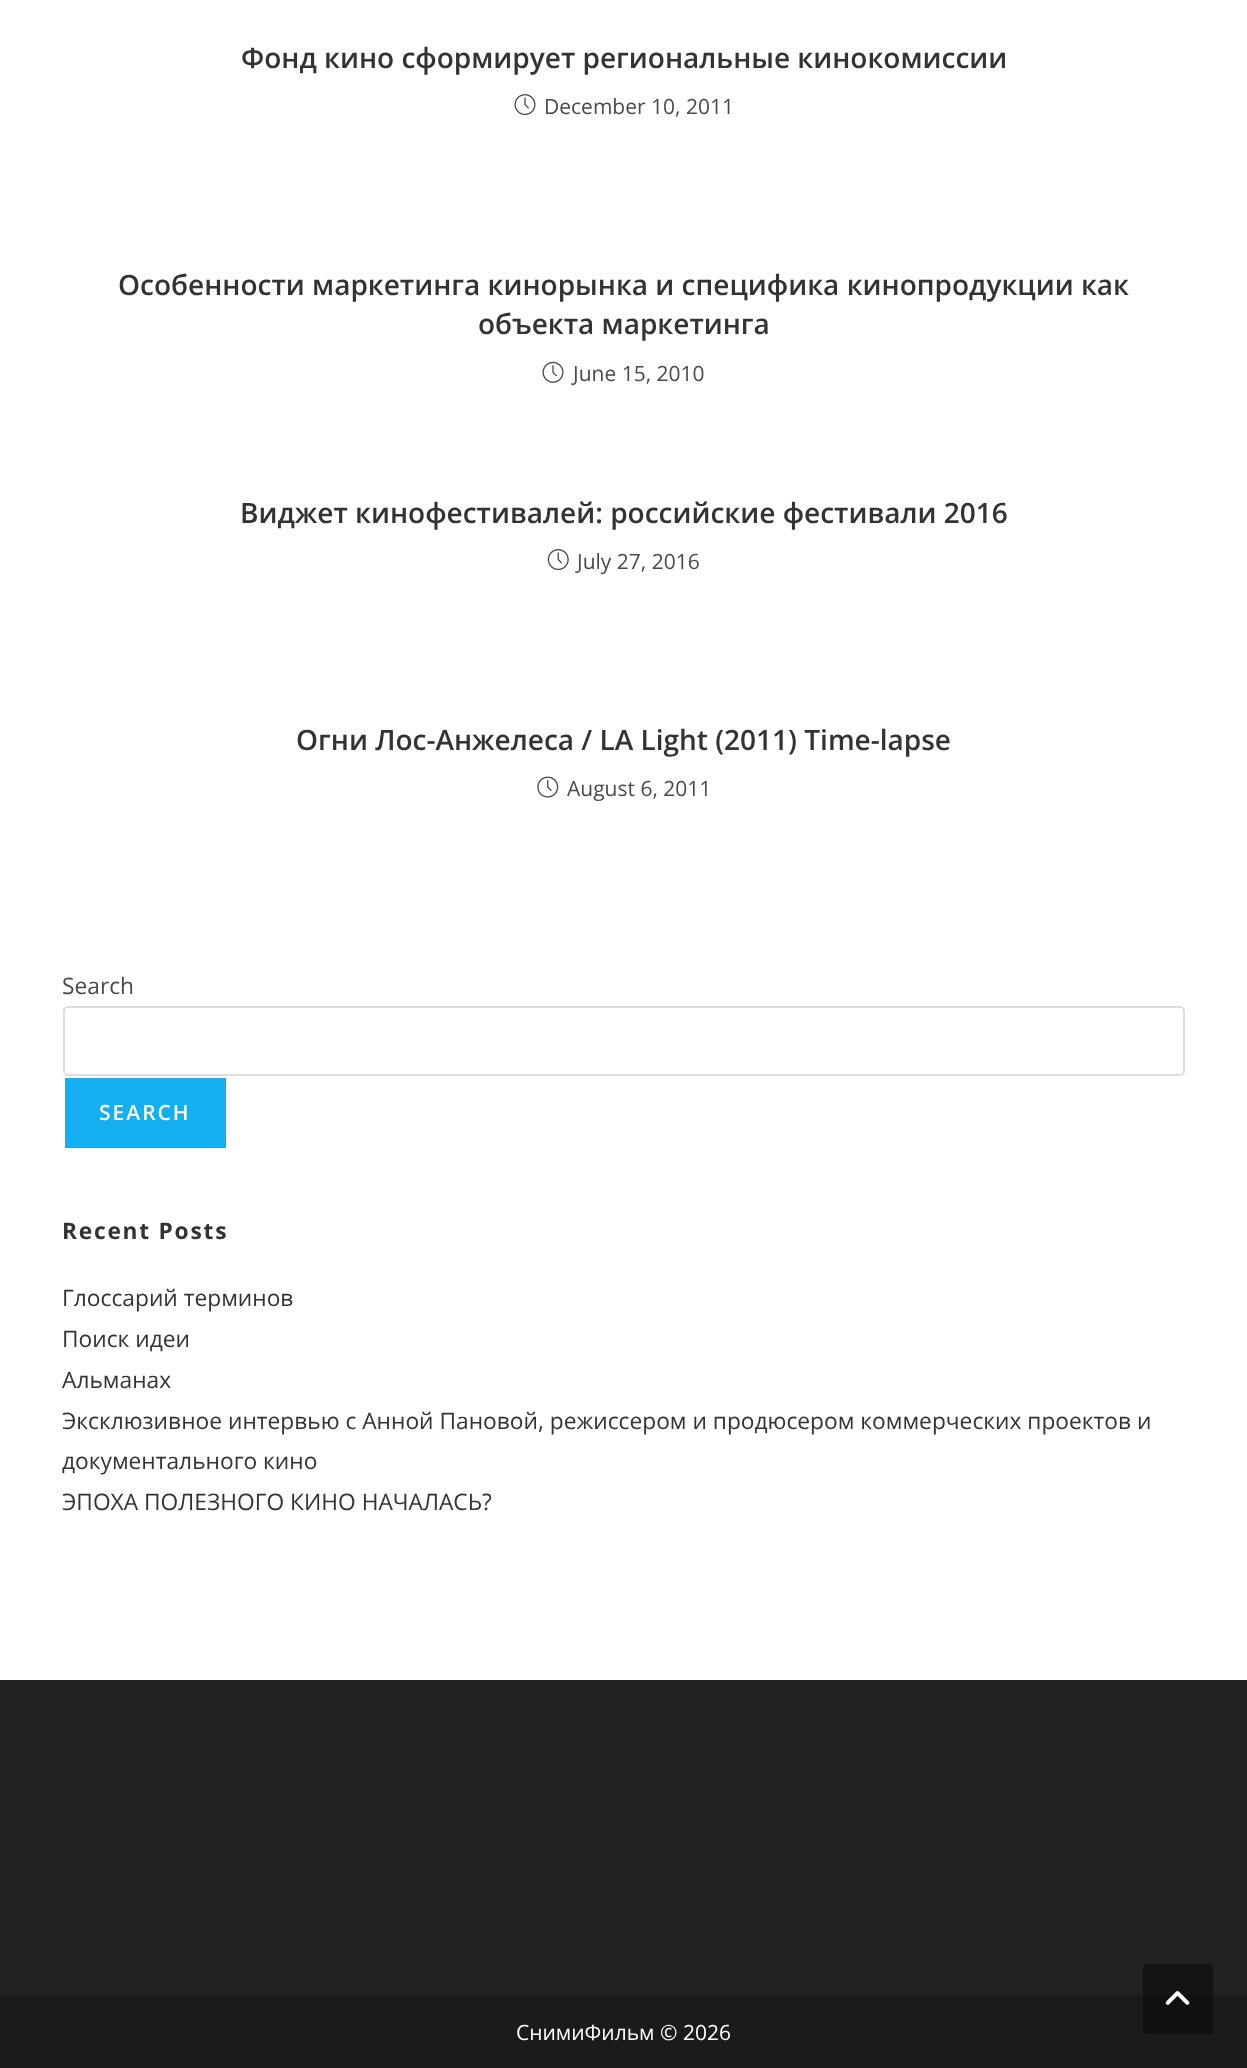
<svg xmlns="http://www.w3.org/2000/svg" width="1247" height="2068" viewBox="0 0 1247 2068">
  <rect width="100%" height="100%" fill="#ffffff"/>
  <text x="241" y="68" font-family="Open Sans" font-size="28" font-weight="600" fill="#333333">Фонд кино сформирует региональные кинокомиссии</text>
  <image x="514" y="94" width="22" height="22" href="img1.png"/>
  <text x="544" y="114" font-family="Open Sans" font-size="21" fill="#4a4a4a">December 10, 2011</text>
  <text x="118" y="295" font-family="Open Sans" font-size="28" font-weight="600" fill="#333333">Особенности маркетинга кинорынка и специфика кинопродукции как</text>
  <text x="478" y="334" font-family="Open Sans" font-size="28" font-weight="600" fill="#333333">объекта маркетинга</text>
  <image x="542" y="361" width="22" height="22" href="img2.png"/>
  <text x="573" y="381" font-family="Open Sans" font-size="21" fill="#4a4a4a">June 15, 2010</text>
  <text x="240" y="523" font-family="Open Sans" font-size="28" font-weight="600" fill="#333333">Виджет кинофестивалей: российские фестивали 2016</text>
  <image x="547" y="549" width="22" height="22" href="img3.png"/>
  <text x="577" y="569" font-family="Open Sans" font-size="21" fill="#4a4a4a">July 27, 2016</text>
  <text x="296" y="750" font-family="Open Sans" font-size="28" font-weight="600" fill="#333333">Огни Лос-Анжелеса / LA Light (2011) Time-lapse</text>
  <image x="537" y="776" width="22" height="22" href="img4.png"/>
  <text x="567" y="796" font-family="Open Sans" font-size="21" fill="#4a4a4a">August 6, 2011</text>
  <text x="62" y="994" font-family="Open Sans" font-size="22.75" fill="#4a4a4a">Search</text>
  <rect x="64" y="1007" width="1120" height="68" rx="4" fill="none" stroke="#dddddd" stroke-width="2"/>
  <rect x="65" y="1078" width="161" height="70" fill="#13aff0"/>
  <text x="99" y="1120" font-family="Open Sans" font-size="21" font-weight="600" letter-spacing="2" fill="#ffffff">SEARCH</text>
  <text x="62" y="1239" font-family="Open Sans" font-size="22.75" font-weight="bold" letter-spacing="1.75" fill="#333333">Recent Posts</text>
  <text x="62" y="1306" font-family="Open Sans" font-size="22.75" fill="#333333">Глоссарий терминов</text>
  <text x="62" y="1347" font-family="Open Sans" font-size="22.75" fill="#333333">Поиск идеи</text>
  <text x="62" y="1388" font-family="Open Sans" font-size="22.75" fill="#333333">Альманах</text>
  <text x="62" y="1429" font-family="Open Sans" font-size="22.75" fill="#333333">Эксклюзивное интервью с Анной Пановой, режиссером и продюсером коммерческих проектов и</text>
  <text x="62" y="1469" font-family="Open Sans" font-size="22.75" fill="#333333">документального кино</text>
  <text x="62" y="1510" font-family="Open Sans" font-size="22.75" fill="#333333">ЭПОХА ПОЛЕЗНОГО КИНО НАЧАЛАСЬ?</text>
  <rect x="0" y="1680" width="1247" height="315" fill="#222222"/>
  <rect x="0" y="1995" width="1247" height="73" fill="#1b1b1b"/>
  <text x="516" y="2040" font-family="Open Sans" font-size="21" fill="#ffffff">СнимиФильм © 2026</text>
  <rect x="1143" y="1964" width="70" height="70" rx="4" fill="#000000" fill-opacity="0.4"/>
  <image x="1165" y="1991" width="25" height="14" href="img5.png"/>
</svg>
